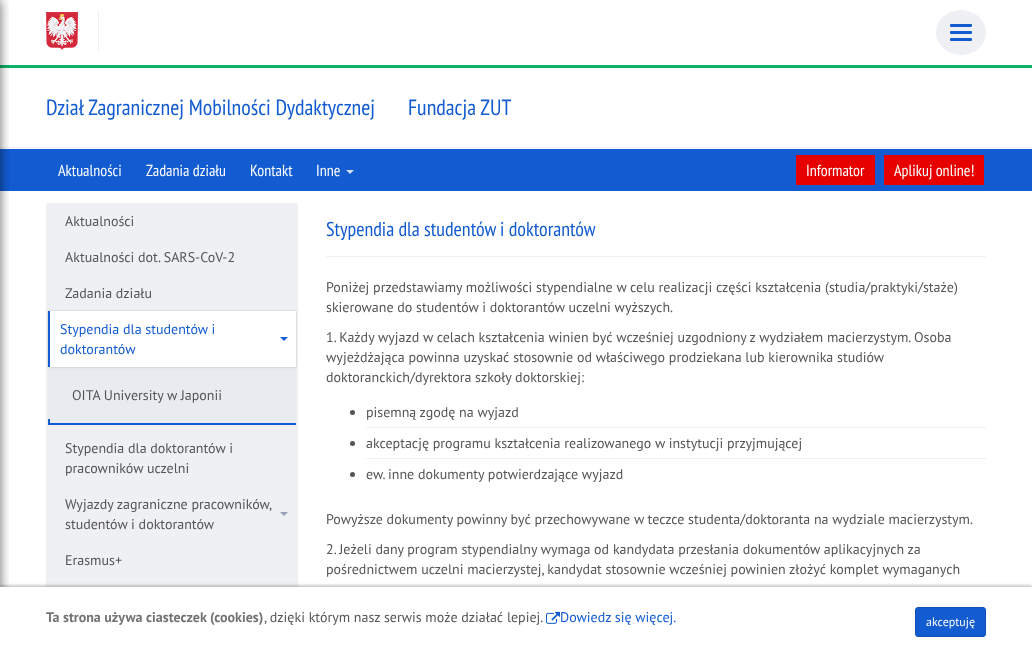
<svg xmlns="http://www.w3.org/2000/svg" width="1032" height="657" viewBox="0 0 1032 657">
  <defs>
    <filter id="blur1" x="-50%" y="-200%" width="200%" height="500%"><feGaussianBlur stdDeviation="6"/></filter>
    <filter id="blur2" x="-50%" y="-200%" width="200%" height="500%"><feGaussianBlur stdDeviation="1"/></filter>
  </defs>
  <rect width="100%" height="100%" fill="#ffffff"/>
  <image x="46" y="12" width="32" height="38" href="img1.png"/>
  <rect x="98" y="10" width="1" height="41" fill="#eef0f3"/>
  <ellipse cx="961" cy="32.5" rx="25" ry="22.5" fill="#eef0f3"/>
  <rect x="950" y="24" width="22" height="3" rx="1" fill="#125bd0"/>
  <rect x="950" y="31" width="22" height="3" rx="1" fill="#125bd0"/>
  <rect x="950" y="38" width="22" height="3" rx="1" fill="#125bd0"/>
  <rect x="0" y="65" width="1032" height="3" fill="#0db16a"/>
  <rect x="0" y="147" width="1032" height="1" fill="#eef0f3"/>
  <rect x="0" y="149" width="1032" height="42" fill="#125bd0"/>
  <rect x="-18" y="0" width="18" height="657" fill="#000000" fill-opacity="0.6" filter="url(#blur1)"/>
  <text x="46" y="115" font-family="PT Sans Narrow" font-size="22" fill="#125bd0">Dział Zagranicznej Mobilności Dydaktycznej</text>
  <text x="408" y="115" font-family="PT Sans Narrow" font-size="22" fill="#125bd0">Fundacja ZUT</text>
  <text x="58" y="176" font-family="PT Sans Narrow" font-size="16" fill="#ffffff">Aktualności</text>
  <text x="146" y="176" font-family="PT Sans Narrow" font-size="16" fill="#ffffff">Zadania działu</text>
  <text x="250" y="176" font-family="PT Sans Narrow" font-size="16" fill="#ffffff">Kontakt</text>
  <text x="316" y="176" font-family="PT Sans Narrow" font-size="16" fill="#ffffff">Inne</text>
  <path d="M346 170H354L350 174Z" fill="#d0def6"/>
  <rect x="796" y="155" width="79" height="30" fill="#e60000"/>
  <text x="806" y="176" font-family="PT Sans Narrow" font-size="16" fill="#ffffff">Informator</text>
  <rect x="884" y="155" width="100" height="30" fill="#e60000"/>
  <text x="894" y="176" font-family="PT Sans Narrow" font-size="16" fill="#ffffff">Aplikuj online!</text>
  <rect x="46" y="203" width="252" height="384" fill="#eef0f3"/>
  <text x="65" y="226" font-family="PT Sans" font-size="14" fill="#555555">Aktualności</text>
  <text x="65" y="262" font-family="PT Sans" font-size="14" fill="#555555">Aktualności dot. SARS-CoV-2</text>
  <text x="65" y="298" font-family="PT Sans" font-size="14" fill="#555555">Zadania działu</text>
  <rect x="48" y="367" width="248" height="56" fill="#e8ebef"/>
  <rect x="48" y="423" width="248" height="2" fill="#125bd0"/>
  <rect x="48" y="311" width="248" height="56" fill="#000000" fill-opacity="0.2" filter="url(#blur2)"/>
  <rect x="50" y="311" width="246" height="56" fill="#ffffff"/>
  <rect x="48" y="311" width="2" height="56" fill="#125bd0"/>
  <text x="60" y="334" font-family="PT Sans" font-size="14" fill="#125bd0">Stypendia dla studentów i</text>
  <path d="M280 337H288L284 341Z" fill="#125bd0"/>
  <text x="60" y="354" font-family="PT Sans" font-size="14" fill="#125bd0">doktorantów</text>
  <text x="72" y="400" font-family="PT Sans" font-size="14" fill="#555555">OITA University w Japonii</text>
  <rect x="48" y="419" width="2" height="4" fill="#125bd0"/>
  <text x="65" y="453" font-family="PT Sans" font-size="14" fill="#555555">Stypendia dla doktorantów i</text>
  <text x="65" y="473" font-family="PT Sans" font-size="14" fill="#555555">pracowników uczelni</text>
  <text x="65" y="509" font-family="PT Sans" font-size="14" fill="#555555">Wyjazdy zagraniczne pracowników,</text>
  <path d="M280 512H288L284 516Z" fill="#94a1b4"/>
  <text x="65" y="529" font-family="PT Sans" font-size="14" fill="#555555">studentów i doktorantów</text>
  <text x="65" y="565" font-family="PT Sans" font-size="14" fill="#555555">Erasmus+</text>
  <rect x="326" y="256" width="660" height="1" fill="#eef0f3"/>
  <text x="326" y="236" font-family="PT Sans Narrow" font-size="20" fill="#125bd0">Stypendia dla studentów i doktorantów</text>
  <text x="326" y="292" font-family="PT Sans" font-size="14" fill="#555555">Poniżej przedstawiamy możliwości stypendialne w celu realizacji części kształcenia (studia/praktyki/staże)</text>
  <text x="326" y="312" font-family="PT Sans" font-size="14" fill="#555555">skierowane do studentów i doktorantów uczelni wyższych.</text>
  <text x="326" y="342" font-family="PT Sans" font-size="14" fill="#555555">1. Każdy wyjazd w celach kształcenia winien być wcześniej uzgodniony z wydziałem macierzystym. Osoba</text>
  <text x="326" y="362" font-family="PT Sans" font-size="14" fill="#555555">wyjeżdżająca powinna uzyskać stosownie od właściwego prodziekana lub kierownika studiów</text>
  <text x="326" y="382" font-family="PT Sans" font-size="14" fill="#555555">doktoranckich/dyrektora szkoły doktorskiej:</text>
  <path d="M366 427.5H986" fill="none" stroke="#dfe3e8" stroke-dasharray="1 1"/>
  <circle cx="352.5" cy="412.5" r="2.5" fill="#555555"/>
  <text x="366" y="417" font-family="PT Sans" font-size="14" fill="#555555">pisemną zgodę na wyjazd</text>
  <path d="M366 458.5H986" fill="none" stroke="#dfe3e8" stroke-dasharray="1 1"/>
  <circle cx="352.5" cy="443.5" r="2.5" fill="#555555"/>
  <text x="366" y="448" font-family="PT Sans" font-size="14" fill="#555555">akceptację programu kształcenia realizowanego w instytucji przyjmującej</text>
  <circle cx="352.5" cy="474.5" r="2.5" fill="#555555"/>
  <text x="366" y="479" font-family="PT Sans" font-size="14" fill="#555555">ew. inne dokumenty potwierdzające wyjazd</text>
  <text x="326" y="524" font-family="PT Sans" font-size="14" fill="#555555">Powyższe dokumenty powinny być przechowywane w teczce studenta/doktoranta na wydziale macierzystym.</text>
  <text x="326" y="554" font-family="PT Sans" font-size="14" fill="#555555">2. Jeżeli dany program stypendialny wymaga od kandydata przesłania dokumentów aplikacyjnych za</text>
  <text x="326" y="574" font-family="PT Sans" font-size="14" fill="#555555">pośrednictwem uczelni macierzystej, kandydat stosownie wcześniej powinien złożyć komplet wymaganych</text>
  <rect x="0" y="585" width="1032" height="70" fill="#000000" fill-opacity="0.2" filter="url(#blur2)"/>
  <rect x="0" y="587" width="1032" height="70" fill="#ffffff"/>
  <text x="46" y="622" font-family="PT Sans" font-size="14" font-weight="bold" fill="#737373">Ta strona używa ciasteczek (cookies)</text>
  <text x="264" y="622" font-family="PT Sans" font-size="14" fill="#555555">, dzięki którym nasz serwis może działać lepiej.</text>
  <image x="546" y="611" width="14" height="13" href="img2.png"/>
  <text x="560" y="622" font-family="PT Sans" font-size="14" fill="#125bd0">Dowiedz się więcej.</text>
  <rect x="915.5" y="607.5" width="70" height="29" rx="2.5" fill="#125bd0" stroke="#1051b9"/>
  <text x="926" y="626" font-family="PT Sans" font-size="12" fill="#ffffff">akceptuję</text>
</svg>
